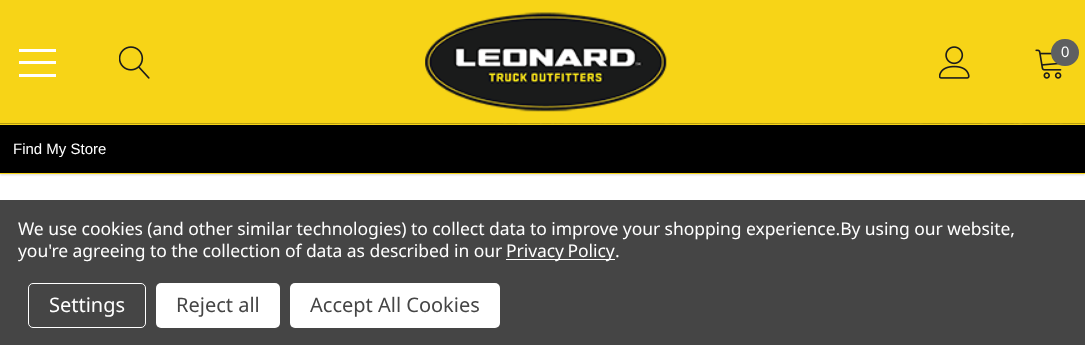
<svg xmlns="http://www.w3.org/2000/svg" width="1085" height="345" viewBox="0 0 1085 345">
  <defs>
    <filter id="blur1" x="-50%" y="-200%" width="200%" height="500%"><feGaussianBlur stdDeviation="1"/></filter>
  </defs>
  <rect width="100%" height="100%" fill="#ffffff"/>
  <rect x="0" y="1" width="1085" height="174" fill="#000000" fill-opacity="0.15" filter="url(#blur1)"/>
  <rect x="0" y="0" width="1085" height="125" fill="#f7d417"/>
  <rect x="19" y="61" width="37" height="3" fill="#ffffff"/>
  <rect x="19" y="49" width="37" height="3" fill="#ffffff"/>
  <rect x="19" y="74" width="37" height="3" fill="#ffffff"/>
  <image x="119" y="46" width="31" height="33" href="img1.png"/>
  <image x="425" y="12" width="242" height="100" href="img2.png"/>
  <image x="939" y="46" width="31" height="33" href="img3.png"/>
  <image x="1035" y="49" width="27" height="30" href="img4.png"/>
  <rect x="1051" y="39" width="28" height="27" rx="13.5" fill="#5e5f61"/>
  <text x="1061" y="57" font-family="Arimo" font-size="15" fill="#ffffff">0</text>
  <image x="0" y="123" width="1085" height="1" href="img5.png"/>
  <rect x="0" y="125" width="1085" height="48" fill="#000000"/>
  <rect x="0" y="173" width="1085" height="1" fill="#f7d417"/>
  <text x="13" y="154" font-family="Arimo" font-size="15" fill="#ffffff">Find My Store</text>
  <rect x="0" y="200" width="1085" height="145" fill="#454545"/>
  <text x="18" y="235" font-family="Noto Sans" font-size="17.5" letter-spacing="-0.06" fill="#ffffff">We use cookies (and other similar technologies) to collect data to improve your shopping experience.By using our website,</text>
  <text x="18" y="257" font-family="Noto Sans" font-size="17.5" letter-spacing="-0.06" fill="#ffffff">you're agreeing to the collection of data as described in our</text>
  <rect x="506" y="259" width="109" height="1" fill="#ffffff"/>
  <text x="506" y="257" word-spacing="-1" font-family="Noto Sans" font-size="17.5" letter-spacing="-0.06" fill="#ffffff">Privacy Policy</text>
  <text x="615" y="257" font-family="Noto Sans" font-size="17.5" letter-spacing="-0.06" fill="#ffffff">.</text>
  <rect x="28.5" y="283.5" width="117" height="44" rx="4.5" fill="none" stroke="#ffffff"/>
  <text x="49" y="312" font-family="Noto Sans" font-size="20" fill="#ffffff">Settings</text>
  <rect x="156" y="283" width="124" height="45" rx="5" fill="#ffffff"/>
  <text x="176" y="312" font-family="Noto Sans" font-size="20" fill="#454545">Reject all</text>
  <rect x="290" y="283" width="210" height="45" rx="5" fill="#ffffff"/>
  <text x="310" y="312" font-family="Noto Sans" font-size="20" fill="#454545">Accept All Cookies</text>
</svg>
